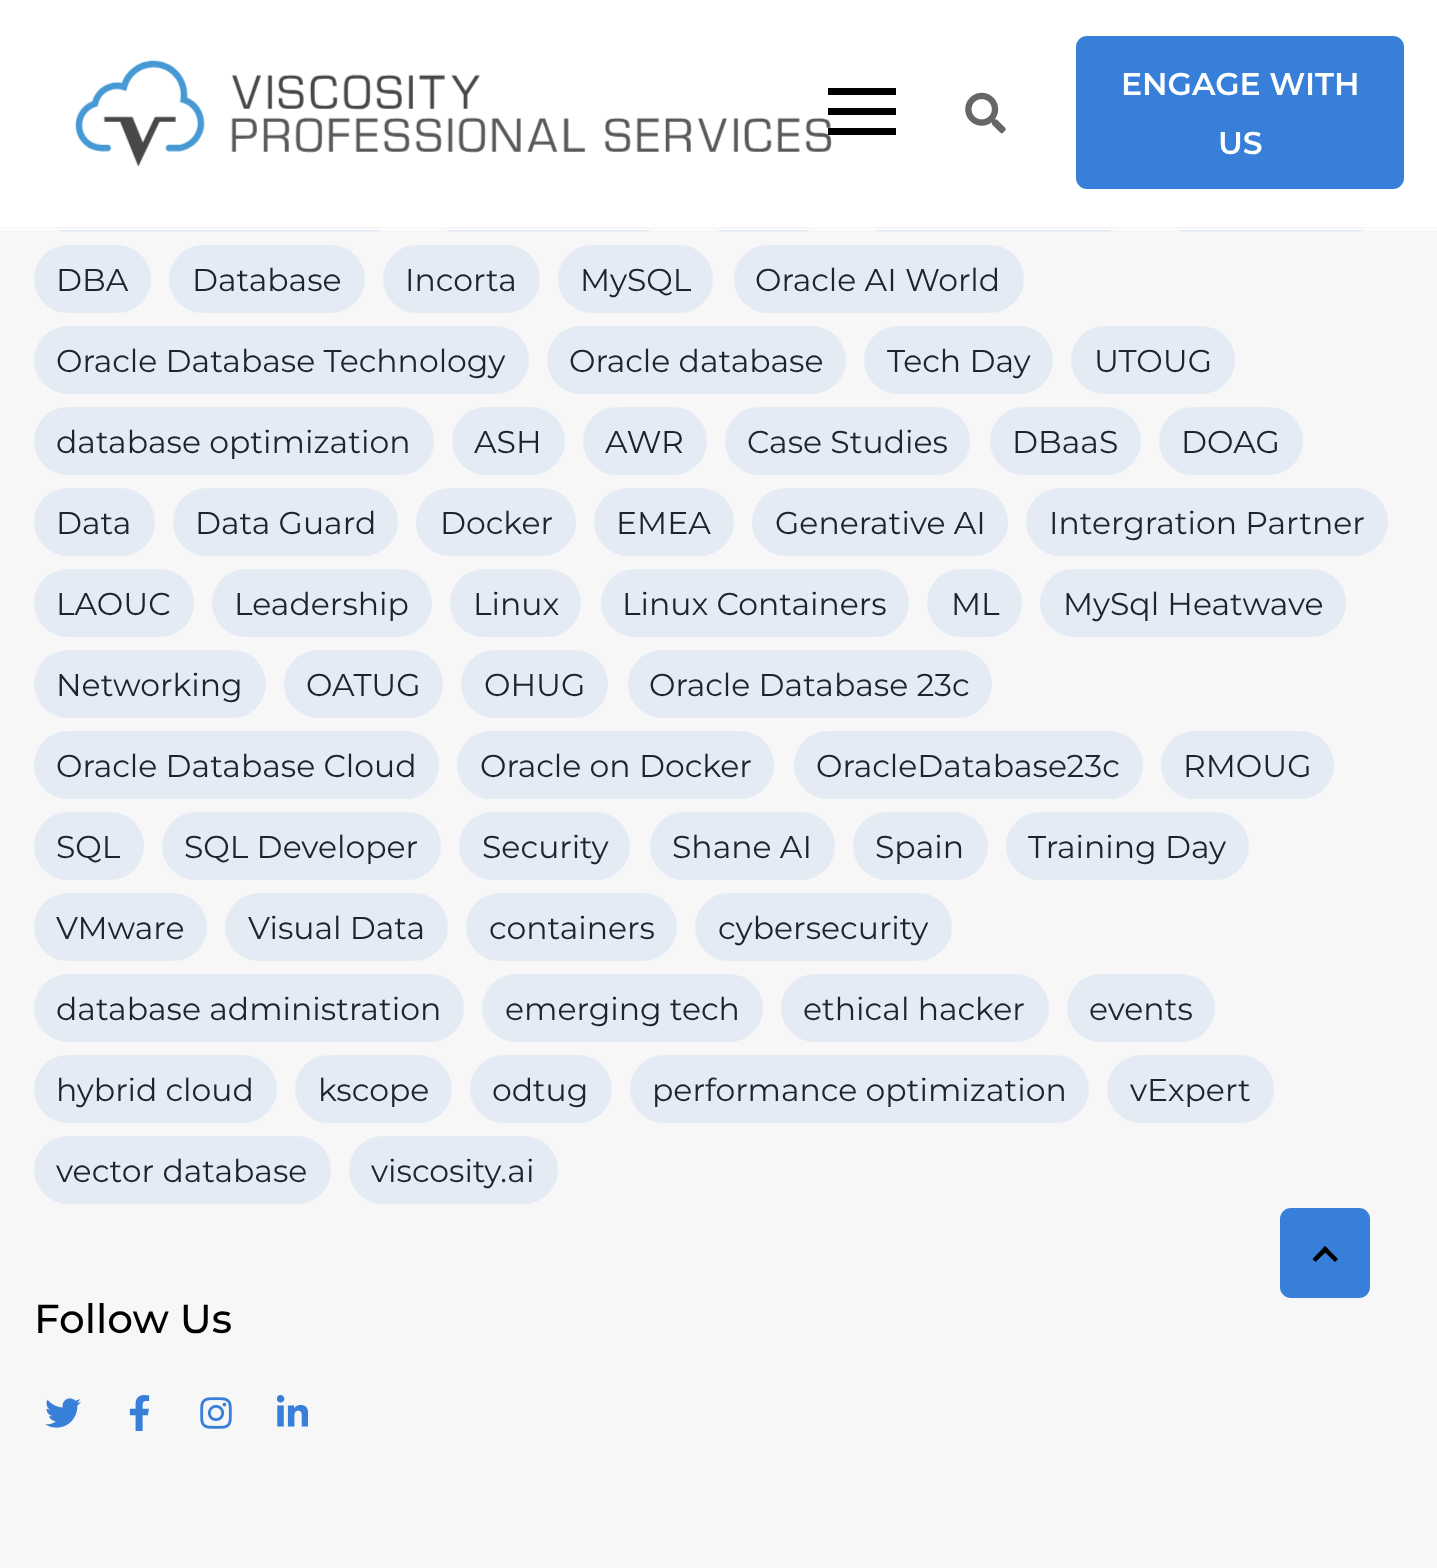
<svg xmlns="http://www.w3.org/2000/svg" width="1437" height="1568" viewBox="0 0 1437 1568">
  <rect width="100%" height="100%" fill="#f7f7f7"/>
  <rect x="34" y="164" width="371" height="68" rx="34" fill="#e4ebf4"/>
  <rect x="423" y="164" width="252" height="68" rx="34" fill="#e4ebf4"/>
  <rect x="693" y="164" width="140" height="68" rx="34" fill="#e4ebf4"/>
  <rect x="851" y="164" width="285" height="68" rx="34" fill="#e4ebf4"/>
  <rect x="1154" y="164" width="234" height="68" rx="34" fill="#e4ebf4"/>
  <rect x="0" y="0" width="1437" height="230" fill="#ffffff"/>
  <rect x="0" y="227" width="1437" height="2" fill="#f7f7f7"/>
  <image x="75" y="60" width="757" height="107" href="img1.png"/>
  <rect x="828" y="108" width="68" height="7" fill="#000000"/>
  <rect x="828" y="88" width="68" height="7" fill="#000000"/>
  <rect x="828" y="128" width="68" height="7" fill="#000000"/>
  <image x="965" y="92" width="41" height="42" href="img2.png"/>
  <rect x="1076" y="36" width="328" height="153" rx="11" fill="#377fd9"/>
  <text x="1121" y="95" font-family="Montserrat" font-size="31.5" font-weight="600" fill="#ffffff">ENGAGE WITH</text>
  <text x="1218" y="154" font-family="Montserrat" font-size="31.5" font-weight="600" fill="#ffffff">US</text>
  <rect x="34" y="245" width="117" height="68" rx="34" fill="#e4ebf4"/>
  <text x="56" y="291" font-family="Montserrat" font-size="31.5" fill="#1c2331">DBA</text>
  <rect x="169" y="245" width="196" height="68" rx="34" fill="#e4ebf4"/>
  <text x="192" y="291" font-family="Montserrat" font-size="31.5" fill="#1c2331">Database</text>
  <rect x="383" y="245" width="157" height="68" rx="34" fill="#e4ebf4"/>
  <text x="405" y="291" font-family="Montserrat" font-size="31.5" fill="#1c2331">Incorta</text>
  <rect x="558" y="245" width="155" height="68" rx="34" fill="#e4ebf4"/>
  <text x="580" y="291" font-family="Montserrat" font-size="31.5" fill="#1c2331">MySQL</text>
  <rect x="734" y="245" width="290" height="68" rx="34" fill="#e4ebf4"/>
  <text x="755" y="291" font-family="Montserrat" font-size="31.5" fill="#1c2331">Oracle AI World</text>
  <rect x="34" y="326" width="495" height="68" rx="34" fill="#e4ebf4"/>
  <text x="56" y="372" font-family="Montserrat" font-size="31.5" fill="#1c2331">Oracle Database Technology</text>
  <rect x="547" y="326" width="299" height="68" rx="34" fill="#e4ebf4"/>
  <text x="569" y="372" font-family="Montserrat" font-size="31.5" fill="#1c2331">Oracle database</text>
  <rect x="864" y="326" width="189" height="68" rx="34" fill="#e4ebf4"/>
  <text x="887" y="372" font-family="Montserrat" font-size="31.5" fill="#1c2331">Tech Day</text>
  <rect x="1071" y="326" width="164" height="68" rx="34" fill="#e4ebf4"/>
  <text x="1094" y="372" font-family="Montserrat" font-size="31.5" fill="#1c2331">UTOUG</text>
  <rect x="34" y="407" width="400" height="68" rx="34" fill="#e4ebf4"/>
  <text x="56" y="453" font-family="Montserrat" font-size="31.5" fill="#1c2331">database optimization</text>
  <rect x="452" y="407" width="113" height="68" rx="34" fill="#e4ebf4"/>
  <text x="474" y="453" font-family="Montserrat" font-size="31.5" fill="#1c2331">ASH</text>
  <rect x="583" y="407" width="124" height="68" rx="34" fill="#e4ebf4"/>
  <text x="605" y="453" font-family="Montserrat" font-size="31.5" fill="#1c2331">AWR</text>
  <rect x="725" y="407" width="245" height="68" rx="34" fill="#e4ebf4"/>
  <text x="747" y="453" font-family="Montserrat" font-size="31.5" fill="#1c2331">Case Studies</text>
  <rect x="990" y="407" width="151" height="68" rx="34" fill="#e4ebf4"/>
  <text x="1012" y="453" font-family="Montserrat" font-size="31.5" fill="#1c2331">DBaaS</text>
  <rect x="1159" y="407" width="144" height="68" rx="34" fill="#e4ebf4"/>
  <text x="1181" y="453" font-family="Montserrat" font-size="31.5" fill="#1c2331">DOAG</text>
  <rect x="34" y="488" width="121" height="68" rx="34" fill="#e4ebf4"/>
  <text x="56" y="534" font-family="Montserrat" font-size="31.5" fill="#1c2331">Data</text>
  <rect x="173" y="488" width="225" height="68" rx="34" fill="#e4ebf4"/>
  <text x="195" y="534" font-family="Montserrat" font-size="31.5" fill="#1c2331">Data Guard</text>
  <rect x="416" y="488" width="160" height="68" rx="34" fill="#e4ebf4"/>
  <text x="440" y="534" font-family="Montserrat" font-size="31.5" fill="#1c2331">Docker</text>
  <rect x="594" y="488" width="140" height="68" rx="34" fill="#e4ebf4"/>
  <text x="616" y="534" font-family="Montserrat" font-size="31.5" fill="#1c2331">EMEA</text>
  <rect x="752" y="488" width="256" height="68" rx="34" fill="#e4ebf4"/>
  <text x="775" y="534" font-family="Montserrat" font-size="31.5" fill="#1c2331">Generative AI</text>
  <rect x="1026" y="488" width="362" height="68" rx="34" fill="#e4ebf4"/>
  <text x="1049" y="534" font-family="Montserrat" font-size="31.5" fill="#1c2331">Intergration Partner</text>
  <rect x="34" y="569" width="160" height="68" rx="34" fill="#e4ebf4"/>
  <text x="56" y="615" font-family="Montserrat" font-size="31.5" fill="#1c2331">LAOUC</text>
  <rect x="212" y="569" width="220" height="68" rx="34" fill="#e4ebf4"/>
  <text x="234" y="615" font-family="Montserrat" font-size="31.5" fill="#1c2331">Leadership</text>
  <rect x="450" y="569" width="131" height="68" rx="34" fill="#e4ebf4"/>
  <text x="473" y="615" font-family="Montserrat" font-size="31.5" fill="#1c2331">Linux</text>
  <rect x="601" y="569" width="308" height="68" rx="34" fill="#e4ebf4"/>
  <text x="622" y="615" font-family="Montserrat" font-size="31.5" fill="#1c2331">Linux Containers</text>
  <rect x="927" y="569" width="95" height="68" rx="34" fill="#e4ebf4"/>
  <text x="951" y="615" font-family="Montserrat" font-size="31.5" fill="#1c2331">ML</text>
  <rect x="1040" y="569" width="306" height="68" rx="34" fill="#e4ebf4"/>
  <text x="1063" y="615" font-family="Montserrat" font-size="31.5" fill="#1c2331">MySql Heatwave</text>
  <rect x="34" y="650" width="232" height="68" rx="34" fill="#e4ebf4"/>
  <text x="56" y="696" font-family="Montserrat" font-size="31.5" fill="#1c2331">Networking</text>
  <rect x="284" y="650" width="159" height="68" rx="34" fill="#e4ebf4"/>
  <text x="306" y="696" font-family="Montserrat" font-size="31.5" fill="#1c2331">OATUG</text>
  <rect x="461" y="650" width="147" height="68" rx="34" fill="#e4ebf4"/>
  <text x="484" y="696" font-family="Montserrat" font-size="31.5" fill="#1c2331">OHUG</text>
  <rect x="628" y="650" width="364" height="68" rx="34" fill="#e4ebf4"/>
  <text x="649" y="696" font-family="Montserrat" font-size="31.5" fill="#1c2331">Oracle Database 23c</text>
  <rect x="34" y="731" width="405" height="68" rx="34" fill="#e4ebf4"/>
  <text x="56" y="777" font-family="Montserrat" font-size="31.5" fill="#1c2331">Oracle Database Cloud</text>
  <rect x="457" y="731" width="317" height="68" rx="34" fill="#e4ebf4"/>
  <text x="480" y="777" font-family="Montserrat" font-size="31.5" fill="#1c2331">Oracle on Docker</text>
  <rect x="794" y="731" width="349" height="68" rx="34" fill="#e4ebf4"/>
  <text x="816" y="777" font-family="Montserrat" font-size="31.5" fill="#1c2331">OracleDatabase23c</text>
  <rect x="1161" y="731" width="173" height="68" rx="34" fill="#e4ebf4"/>
  <text x="1183" y="777" font-family="Montserrat" font-size="31.5" fill="#1c2331">RMOUG</text>
  <rect x="34" y="812" width="110" height="68" rx="34" fill="#e4ebf4"/>
  <text x="56" y="858" font-family="Montserrat" font-size="31.5" fill="#1c2331">SQL</text>
  <rect x="162" y="812" width="279" height="68" rx="34" fill="#e4ebf4"/>
  <text x="184" y="858" font-family="Montserrat" font-size="31.5" fill="#1c2331">SQL Developer</text>
  <rect x="459" y="812" width="171" height="68" rx="34" fill="#e4ebf4"/>
  <text x="482" y="858" font-family="Montserrat" font-size="31.5" fill="#1c2331">Security</text>
  <rect x="650" y="812" width="185" height="68" rx="34" fill="#e4ebf4"/>
  <text x="672" y="858" font-family="Montserrat" font-size="31.5" fill="#1c2331">Shane AI</text>
  <rect x="853" y="812" width="135" height="68" rx="34" fill="#e4ebf4"/>
  <text x="875" y="858" font-family="Montserrat" font-size="31.5" fill="#1c2331">Spain</text>
  <rect x="1006" y="812" width="243" height="68" rx="34" fill="#e4ebf4"/>
  <text x="1028" y="858" font-family="Montserrat" font-size="31.5" fill="#1c2331">Training Day</text>
  <rect x="34" y="893" width="173" height="68" rx="34" fill="#e4ebf4"/>
  <text x="56" y="939" font-family="Montserrat" font-size="31.5" fill="#1c2331">VMware</text>
  <rect x="225" y="893" width="223" height="68" rx="34" fill="#e4ebf4"/>
  <text x="248" y="939" font-family="Montserrat" font-size="31.5" fill="#1c2331">Visual Data</text>
  <rect x="466" y="893" width="211" height="68" rx="34" fill="#e4ebf4"/>
  <text x="489" y="939" font-family="Montserrat" font-size="31.5" fill="#1c2331">containers</text>
  <rect x="695" y="893" width="257" height="68" rx="34" fill="#e4ebf4"/>
  <text x="718" y="939" font-family="Montserrat" font-size="31.5" fill="#1c2331">cybersecurity</text>
  <rect x="34" y="974" width="430" height="68" rx="34" fill="#e4ebf4"/>
  <text x="56" y="1020" font-family="Montserrat" font-size="31.5" fill="#1c2331">database administration</text>
  <rect x="482" y="974" width="281" height="68" rx="34" fill="#e4ebf4"/>
  <text x="505" y="1020" font-family="Montserrat" font-size="31.5" fill="#1c2331">emerging tech</text>
  <rect x="781" y="974" width="268" height="68" rx="34" fill="#e4ebf4"/>
  <text x="803" y="1020" font-family="Montserrat" font-size="31.5" fill="#1c2331">ethical hacker</text>
  <rect x="1067" y="974" width="148" height="68" rx="34" fill="#e4ebf4"/>
  <text x="1089" y="1020" font-family="Montserrat" font-size="31.5" fill="#1c2331">events</text>
  <rect x="34" y="1055" width="243" height="68" rx="34" fill="#e4ebf4"/>
  <text x="56" y="1101" font-family="Montserrat" font-size="31.5" fill="#1c2331">hybrid cloud</text>
  <rect x="295" y="1055" width="157" height="68" rx="34" fill="#e4ebf4"/>
  <text x="318" y="1101" font-family="Montserrat" font-size="31.5" fill="#1c2331">kscope</text>
  <rect x="470" y="1055" width="142" height="68" rx="34" fill="#e4ebf4"/>
  <text x="492" y="1101" font-family="Montserrat" font-size="31.5" fill="#1c2331">odtug</text>
  <rect x="630" y="1055" width="459" height="68" rx="34" fill="#e4ebf4"/>
  <text x="652" y="1101" font-family="Montserrat" font-size="31.5" fill="#1c2331">performance optimization</text>
  <rect x="1107" y="1055" width="167" height="68" rx="34" fill="#e4ebf4"/>
  <text x="1130" y="1101" font-family="Montserrat" font-size="31.5" fill="#1c2331">vExpert</text>
  <rect x="34" y="1136" width="297" height="68" rx="34" fill="#e4ebf4"/>
  <text x="56" y="1182" font-family="Montserrat" font-size="31.5" fill="#1c2331">vector database</text>
  <rect x="349" y="1136" width="209" height="68" rx="34" fill="#e4ebf4"/>
  <text x="371" y="1182" font-family="Montserrat" font-size="31.5" fill="#1c2331">viscosity.ai</text>
  <text x="34" y="1333" font-family="Montserrat" font-size="40.5" font-weight="500" fill="#000000">Follow Us</text>
  <image x="45" y="1398" width="36" height="30" href="img3.png"/>
  <image x="129" y="1395" width="21" height="36" href="img4.png"/>
  <image x="200" y="1397" width="32" height="32" href="img5.png"/>
  <image x="277" y="1395" width="31" height="32" href="img6.png"/>
  <rect x="1280" y="1208" width="90" height="90" rx="11" fill="#377fd9"/>
  <path d="M1325 1246L1338 1259L1335 1262L1322 1249.5Z" fill="#000000"/>
  <path d="M1325 1246L1328.5 1249.5L1315.5 1262L1312.5 1259Z" fill="#000000"/>
</svg>
